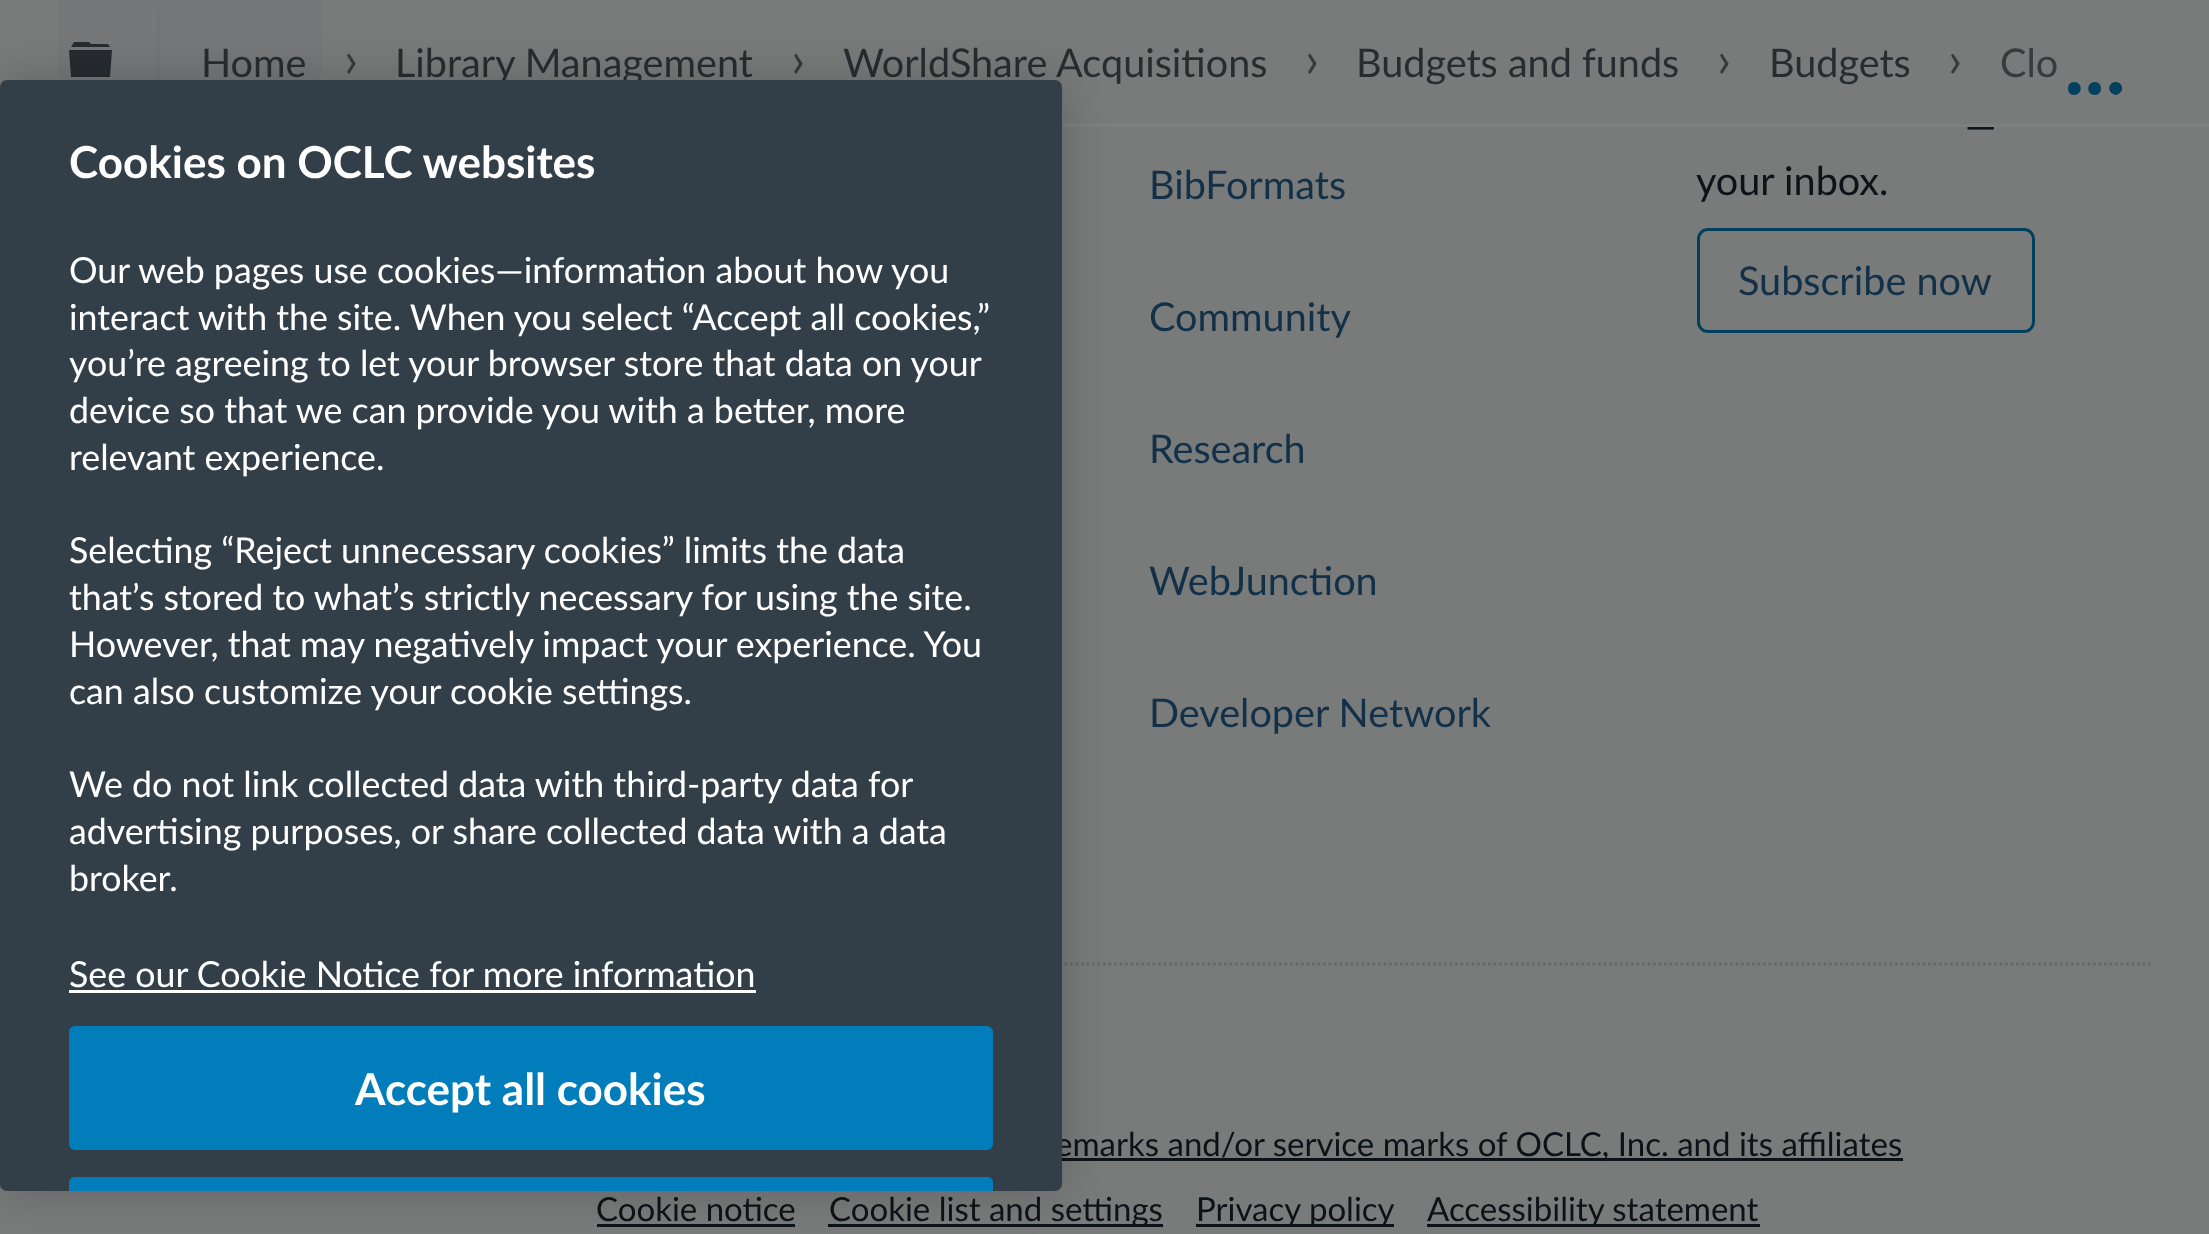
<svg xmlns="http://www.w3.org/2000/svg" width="2209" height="1234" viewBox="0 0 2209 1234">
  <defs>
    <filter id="blur1" x="-50%" y="-200%" width="200%" height="500%"><feGaussianBlur stdDeviation="25"/></filter>
  </defs>
  <rect width="100%" height="100%" fill="#797a7a"/>
  <rect x="58" y="-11" width="264" height="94" rx="11" fill="#123149"/>
  <rect x="58" y="0" width="264" height="83" fill="#797a7a" fill-opacity="0.97"/>
  <rect x="1062" y="124" width="1147" height="3" fill="#808080" fill-opacity="0.97"/>
  <path d="M69 50H112L110 77H71ZM108 44L110 47H71L74 42H89L91 44Z" fill="#00080d" fill-opacity="0.68"/>
  <rect x="157" y="11" width="3" height="69" fill="#737474" fill-opacity="0.97"/>
  <text x="201" y="77" font-family="Lato" font-size="39.6" fill="#262c30">Home</text>
  <text x="344" y="77" font-family="Lato" font-size="50" fill="#363b3e">›</text>
  <text x="395" y="77" font-family="Lato" font-size="39.6" fill="#262c30">Library Management</text>
  <text x="791" y="77" font-family="Lato" font-size="50" fill="#363b3e">›</text>
  <text x="843" y="77" font-family="Lato" font-size="39.6" fill="#262c30">WorldShare Acquisitions</text>
  <text x="1305" y="77" font-family="Lato" font-size="50" fill="#363b3e">›</text>
  <text x="1356" y="77" font-family="Lato" font-size="39.6" fill="#262c30">Budgets and funds</text>
  <text x="1717" y="77" font-family="Lato" font-size="50" fill="#363b3e">›</text>
  <text x="1769" y="77" font-family="Lato" font-size="39.6" fill="#262c30">Budgets</text>
  <text x="1948" y="77" font-family="Lato" font-size="50" fill="#363b3e">›</text>
  <text x="2000" y="77" font-family="Lato" font-size="39.6" fill="#363b3e">Clo</text>
  <path d="M2116 82C2120 82 2123 86 2122 90C2121 92 2118 95 2116 95C2106 93 2108 82 2116 82ZM2074 82C2083 82 2083 95 2074 95C2066 95 2066 82 2074 82ZM2095 82C2103 82 2103 95 2095 95C2086 95 2086 82 2095 82Z" fill="#003f5d" fill-opacity="0.97" fill-rule="evenodd"/>
  <text x="1149" y="199" font-family="Lato" font-size="39.6" fill="#123149">BibFormats</text>
  <text x="1149" y="331" font-family="Lato" font-size="39.6" fill="#123149">Community</text>
  <text x="1149" y="463" font-family="Lato" font-size="39.6" fill="#123149">Research</text>
  <text x="1149" y="595" font-family="Lato" font-size="39.6" fill="#123149">WebJunction</text>
  <text x="1149" y="727" font-family="Lato" font-size="39.6" fill="#123149">Developer Network</text>
  <text x="1965" y="140" font-family="Lato" font-size="39.6" fill="#0c1318">—</text>
  <text x="1696" y="195" font-family="Lato" font-size="39.6" fill="#0c1318">your inbox.</text>
  <rect x="1698.5" y="229.5" width="335" height="102" rx="9.5" fill="none" stroke="#003f5d" stroke-width="3"/>
  <text x="1738" y="295" font-family="Lato" font-size="39.6" fill="#123149">Subscribe now</text>
  <path d="M58 964H2153" fill="none" stroke="#666869" stroke-width="2.8" stroke-dasharray="2.75 2.75"/>
  <rect x="1062" y="1158" width="841" height="3" fill="#0c1318"/>
  <text x="1055" y="1156" font-family="Lato" font-size="33" fill="#0c1318">emarks and/or service marks of OCLC, Inc. and its affiliates</text>
  <text x="596" y="1221" font-family="Lato" font-size="33" fill="#0c1318">Cookie notice</text>
  <rect x="597" y="1224" width="198" height="3" fill="#0c1318"/>
  <rect x="828" y="1224" width="335" height="3" fill="#0c1318"/>
  <text x="829" y="1221" font-family="Lato" font-size="33" fill="#0c1318">Cookie list and settings</text>
  <rect x="1196" y="1224" width="198" height="3" fill="#0c1318"/>
  <text x="1196" y="1221" font-family="Lato" font-size="33" fill="#0c1318">Privacy policy</text>
  <rect x="1427" y="1224" width="333" height="3" fill="#0c1318"/>
  <text x="1427" y="1221" font-family="Lato" font-size="33" fill="#0c1318">Accessibility statement</text>
  <rect x="0" y="80" width="1062" height="1111" rx="7" fill="#000000" fill-opacity="0.2" filter="url(#blur1)"/>
  <rect x="0" y="80" width="1062" height="1111" rx="7" fill="#333f48"/>
  <text x="69" y="178" font-family="Lato" font-size="44" font-weight="bold" fill="#ffffff">Cookies on OCLC websites</text>
  <text x="69" y="283" font-family="Lato" font-size="35.75" fill="#ffffff">Our web pages use cookies—information about how you</text>
  <text x="69" y="330" font-family="Lato" font-size="35.75" fill="#ffffff">interact with the site. When you select “Accept all cookies,”</text>
  <text x="69" y="376" font-family="Lato" font-size="35.75" fill="#ffffff">you’re agreeing to let your browser store that data on your</text>
  <text x="69" y="423" font-family="Lato" font-size="35.75" fill="#ffffff">device so that we can provide you with a better, more</text>
  <text x="69" y="470" font-family="Lato" font-size="35.75" fill="#ffffff">relevant experience.</text>
  <text x="69" y="563" font-family="Lato" font-size="35.75" fill="#ffffff">Selecting “Reject unnecessary cookies” limits the data</text>
  <text x="69" y="610" font-family="Lato" font-size="35.75" fill="#ffffff">that’s stored to what’s strictly necessary for using the site.</text>
  <text x="69" y="657" font-family="Lato" font-size="35.75" fill="#ffffff">However, that may negatively impact your experience. You</text>
  <text x="69" y="704" font-family="Lato" font-size="35.75" fill="#ffffff">can also customize your cookie settings.</text>
  <text x="69" y="797" font-family="Lato" font-size="35.75" fill="#ffffff">We do not link collected data with third-party data for</text>
  <text x="69" y="844" font-family="Lato" font-size="35.75" fill="#ffffff">advertising purposes, or share collected data with a data</text>
  <text x="69" y="891" font-family="Lato" font-size="35.75" fill="#ffffff">broker.</text>
  <text x="69" y="987" font-family="Lato" font-size="35.75" fill="#ffffff">See our Cookie Notice for more information</text>
  <rect x="69" y="990" width="687" height="3" fill="#ffffff"/>
  <rect x="70.5" y="1027.5" width="921" height="121" rx="4.5" fill="#007dba" stroke="#007dba" stroke-width="3"/>
  <text x="355" y="1105" font-family="Lato" font-size="44" font-weight="bold" fill="#ffffff">Accept all cookies</text>
  <path d="M75 1177H987C990.5 1177 993 1179.5 993 1183V1191H69V1183C69 1179.5 71.5 1177 75 1177Z" fill="#007dba"/>
  <path d="M75 1177C68 1177 69 1186 69 1191H72V1183C72 1181 73 1180 75 1180H987C989 1180 990 1181 990 1183V1191H993C993 1186 994 1177 987 1177Z" fill="#007dba"/>
</svg>
